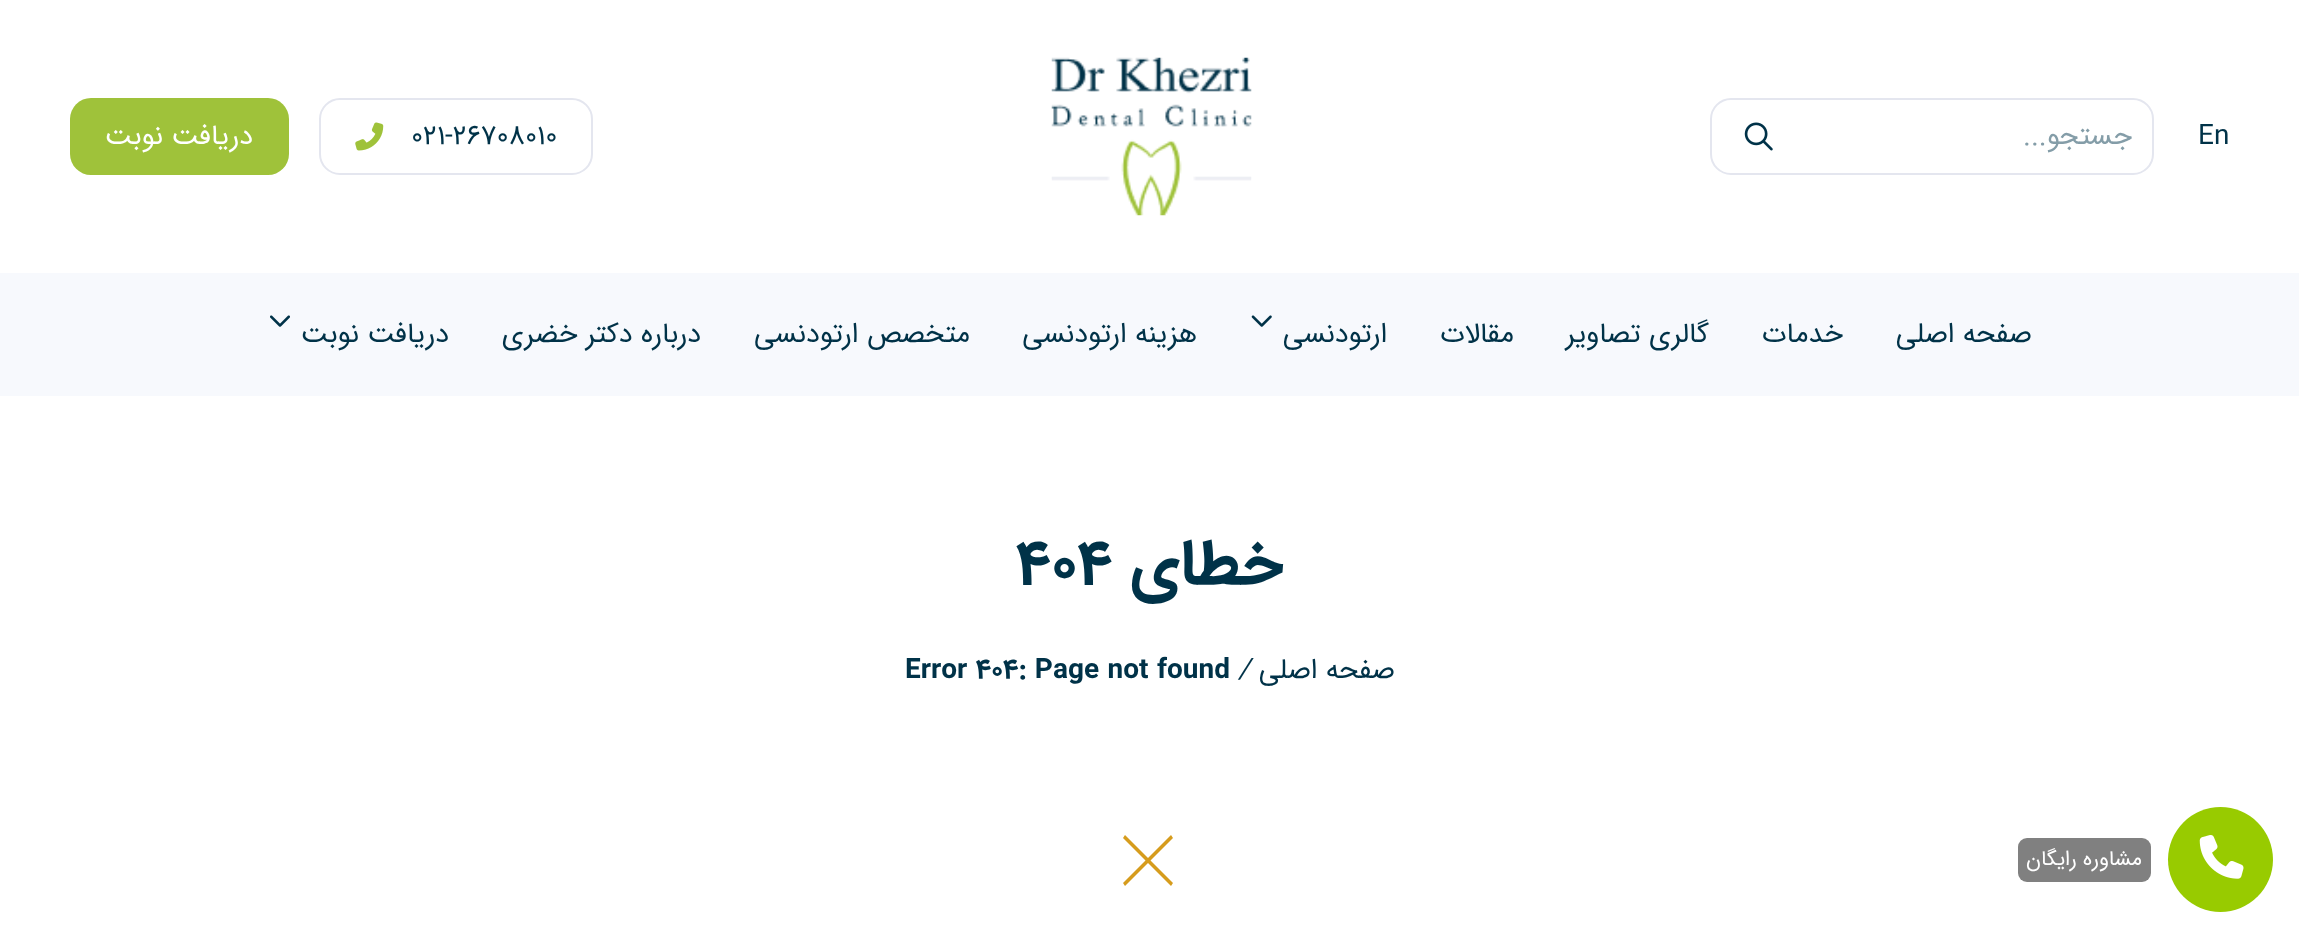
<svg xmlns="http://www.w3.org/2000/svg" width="2299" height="937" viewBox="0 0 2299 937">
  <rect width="100%" height="100%" fill="#ffffff"/>
  <text x="2198" y="144" font-family="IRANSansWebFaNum" font-size="28" fill="#003248">En</text>
  <rect x="1711" y="99" width="442" height="75" rx="20" fill="none" stroke="#e4e6ef" stroke-width="2"/>
  <text x="2132" y="144" font-family="IRANSansWebFaNum" font-size="28" direction="rtl" fill="#849da8">جستجو...</text>
  <image x="1744" y="122" width="29" height="29" href="img1.png"/>
  <image x="1051" y="57" width="201" height="159" href="img2.png"/>
  <rect x="320" y="99" width="272" height="75" rx="20" fill="none" stroke="#e4e6ef" stroke-width="2"/>
  <text x="411" y="144" font-family="IRANSansWebFaNum" font-size="28" fill="#003248">021-26708010</text>
  <image x="355" y="122" width="29" height="29" href="img3.png"/>
  <rect x="70" y="98" width="219" height="77" rx="21" fill="#9fc23a"/>
  <text x="253" y="144" font-family="IRANSansWebFaNum" font-size="28" direction="rtl" fill="#ffffff">دریافت نوبت</text>
  <rect x="0" y="273" width="2299" height="123" fill="#f7f9fd"/>
  <text x="2032" y="342" font-family="IRANSansWebFaNum" font-size="28" direction="rtl" fill="#003248">صفحه اصلی</text>
  <text x="1843" y="342" font-family="IRANSansWebFaNum" font-size="28" direction="rtl" fill="#003248">خدمات</text>
  <text x="1709" y="342" font-family="IRANSansWebFaNum" font-size="28" direction="rtl" fill="#003248">گالری تصاویر</text>
  <text x="1514" y="342" font-family="IRANSansWebFaNum" font-size="28" direction="rtl" fill="#003248">مقالات</text>
  <text x="1387" y="342" font-family="IRANSansWebFaNum" font-size="28" direction="rtl" fill="#003248">ارتودنسی</text>
  <image x="1251" y="315" width="21" height="12" href="img4.png"/>
  <text x="1197" y="342" font-family="IRANSansWebFaNum" font-size="28" direction="rtl" fill="#003248">هزینه ارتودنسی</text>
  <text x="970" y="342" font-family="IRANSansWebFaNum" font-size="28" direction="rtl" fill="#003248">متخصص ارتودنسی</text>
  <text x="701" y="342" font-family="IRANSansWebFaNum" font-size="28" direction="rtl" fill="#003248">درباره دکتر خضری</text>
  <text x="449" y="342" font-family="IRANSansWebFaNum" font-size="28" direction="rtl" fill="#003248">دریافت نوبت</text>
  <image x="270" y="315" width="20" height="12" href="img5.png"/>
  <text x="1284" y="583" font-family="IRANSansWebFaNum" font-size="63" font-weight="bold" direction="rtl" fill="#003248">خطای</text>
  <text x="1016" y="583" font-family="IRANSansWebFaNum" font-size="63" font-weight="bold" fill="#003248">404</text>
  <text x="1395" y="678" font-family="IRANSansWebFaNum" font-size="28" direction="rtl" fill="#003248">صفحه اصلی</text>
  <text x="1238" y="678" font-family="IRANSansWebFaNum" font-size="28" font-style="italic" fill="#003248">/</text>
  <text x="905" y="678" font-family="IRANSansWebFaNum" font-size="28" font-weight="bold" fill="#003248">Error 404: Page not found</text>
  <circle cx="2220.5" cy="859.5" r="52.5" fill="#98cb00"/>
  <image x="2199" y="835" width="45" height="44" href="img6.png"/>
  <rect x="2018" y="838" width="133" height="44" rx="9" fill="#808080"/>
  <text x="2142" y="865" font-family="IRANSansWebFaNum" font-size="21" direction="rtl" fill="#ffffff">مشاوره رایگان</text>
  <path d="M1171 835L1173 838L1125 886L1123 883Z" fill="#d69c1d"/>
  <path d="M1123 838L1125 835L1173 883L1171 886Z" fill="#d69c1d"/>
</svg>
